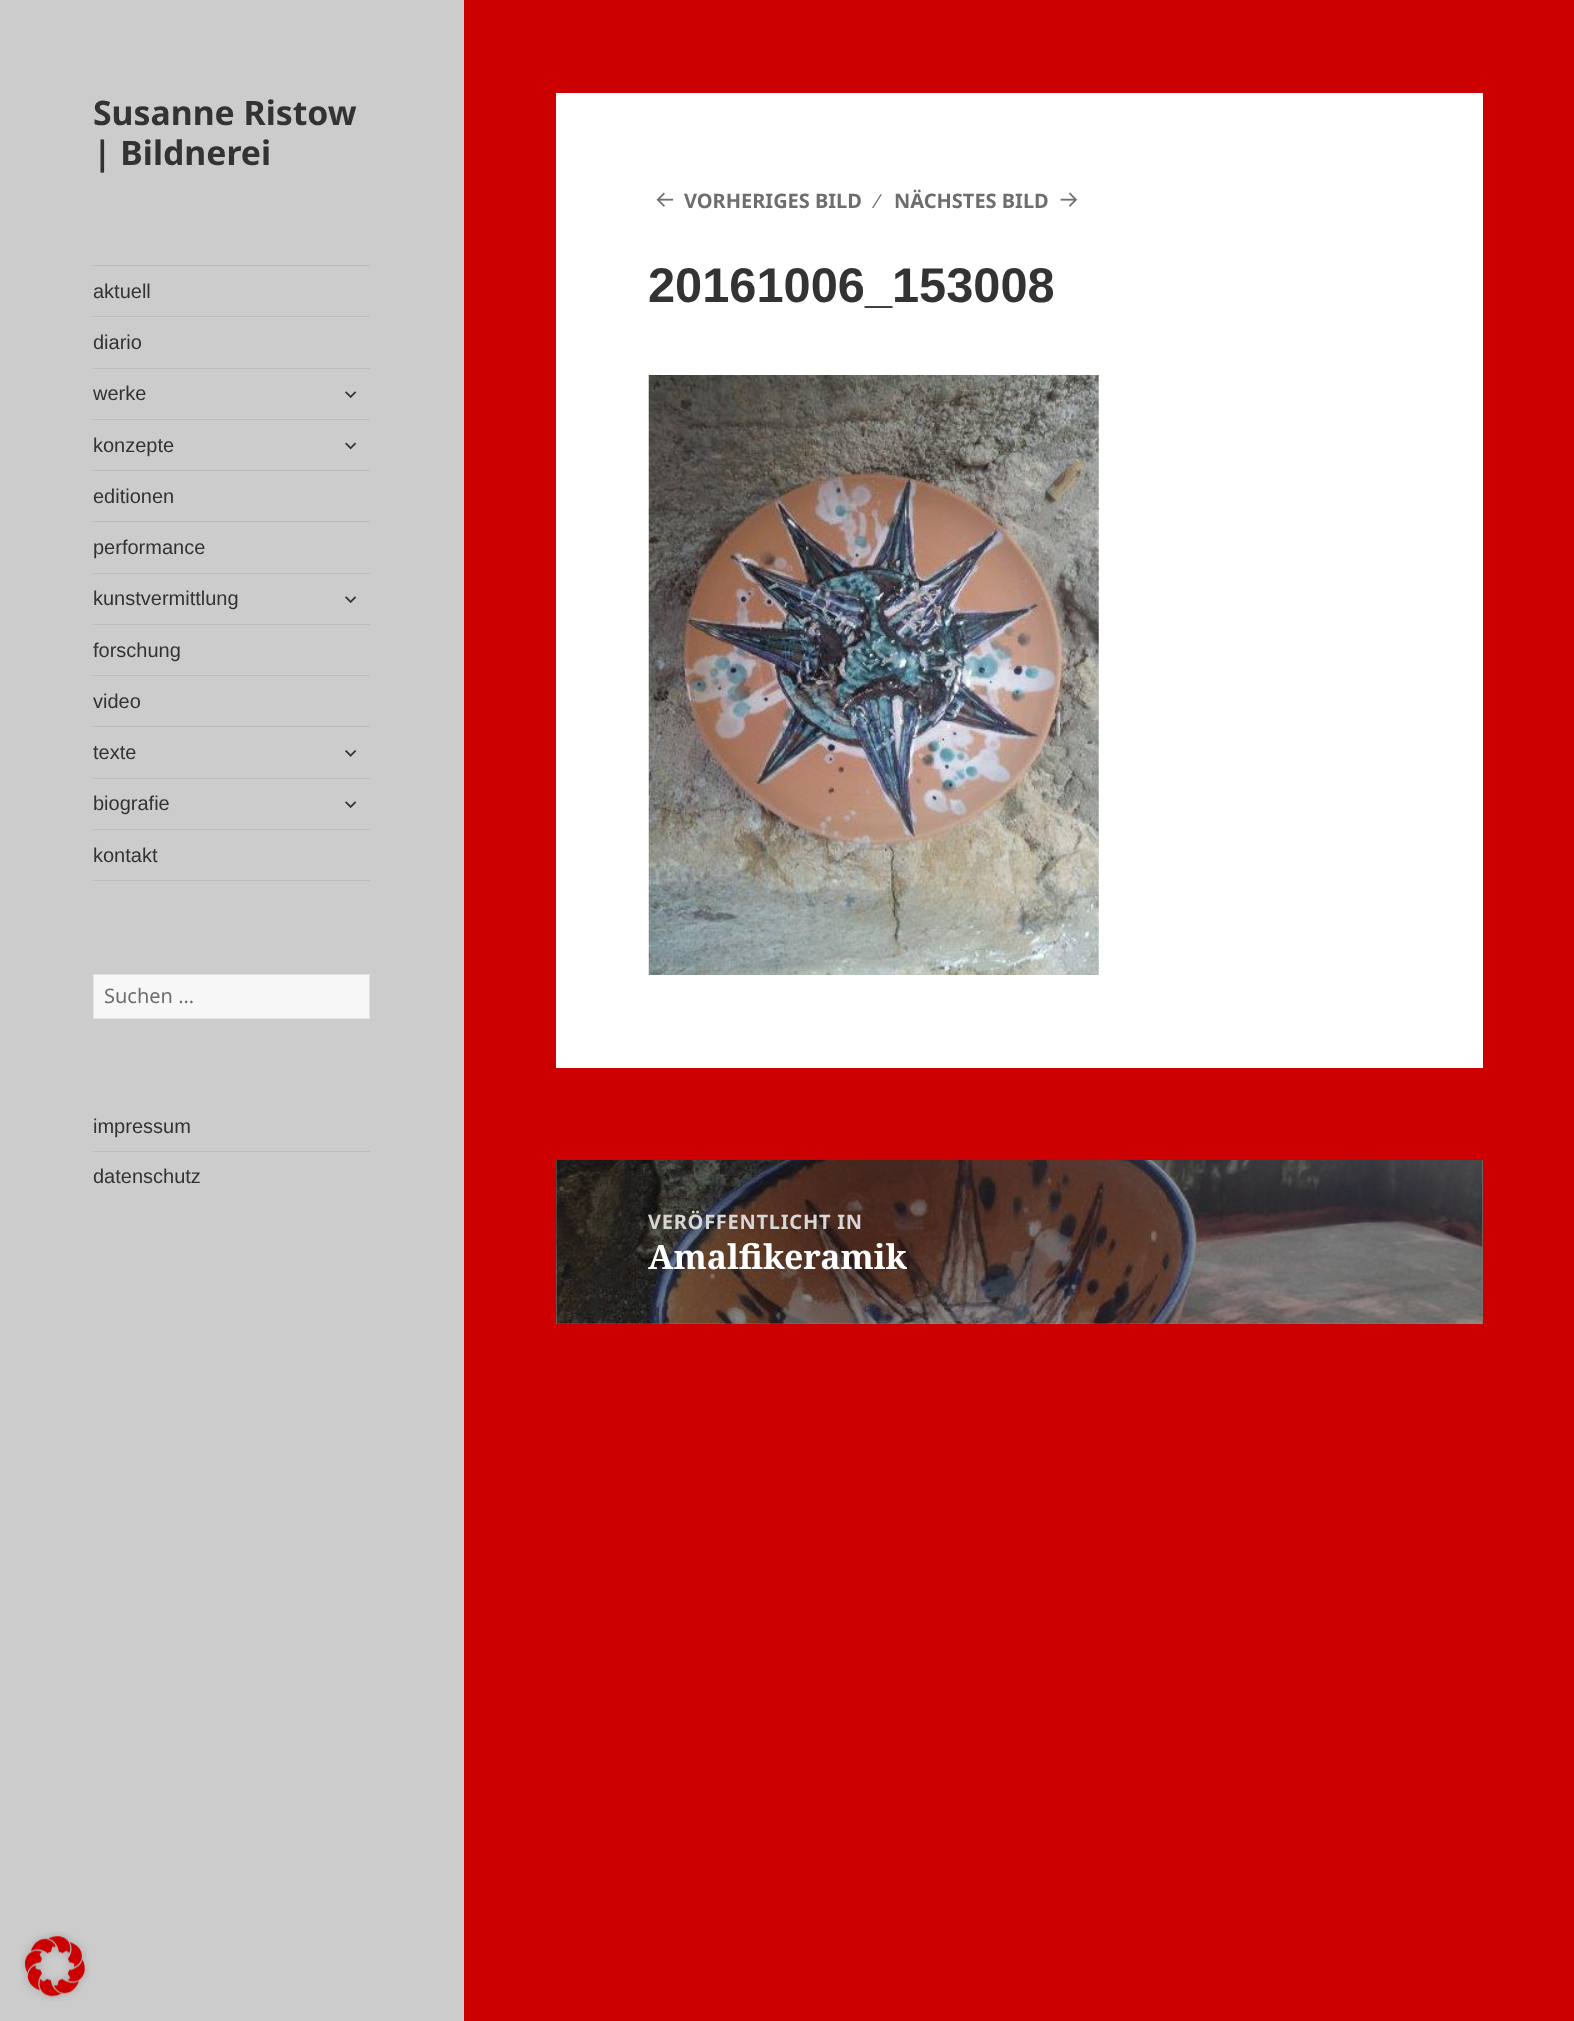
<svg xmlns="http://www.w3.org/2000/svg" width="1574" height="2021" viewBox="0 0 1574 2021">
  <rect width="100%" height="100%" fill="#cc0000"/>
  <rect x="0" y="0" width="464" height="2021" fill="#cccccc"/>
  <text x="93" y="125" font-family="Noto Sans" font-size="33.75" font-weight="bold" fill="#333333">Susanne Ristow</text>
  <text x="93" y="165" font-family="Noto Sans" font-size="33.75" font-weight="bold" fill="#333333">| Bildnerei</text>
  <rect x="93" y="265" width="277" height="1" fill="#bdbdbd"/>
  <rect x="93" y="880" width="277" height="1" fill="#bdbdbd"/>
  <text x="93" y="298" font-family="Liberation Sans" font-size="20" fill="#333333">aktuell</text>
  <rect x="93" y="316" width="277" height="1" fill="#bdbdbd"/>
  <text x="93" y="349" font-family="Liberation Sans" font-size="20" fill="#333333">diario</text>
  <rect x="93" y="368" width="277" height="1" fill="#bdbdbd"/>
  <text x="93" y="400" font-family="Liberation Sans" font-size="20" fill="#333333">werke</text>
  <image x="345" y="391" width="12" height="7" href="img1.png"/>
  <rect x="93" y="419" width="277" height="1" fill="#bdbdbd"/>
  <text x="93" y="452" font-family="Liberation Sans" font-size="20" fill="#333333">konzepte</text>
  <image x="345" y="442" width="12" height="8" href="img2.png"/>
  <rect x="93" y="470" width="277" height="1" fill="#bdbdbd"/>
  <text x="93" y="503" font-family="Liberation Sans" font-size="20" fill="#333333">editionen</text>
  <rect x="93" y="521" width="277" height="1" fill="#bdbdbd"/>
  <text x="93" y="554" font-family="Liberation Sans" font-size="20" fill="#333333">performance</text>
  <rect x="93" y="573" width="277" height="1" fill="#bdbdbd"/>
  <text x="93" y="605" font-family="Liberation Sans" font-size="20" fill="#333333">kunstvermittlung</text>
  <image x="345" y="596" width="12" height="7" href="img1.png"/>
  <rect x="93" y="624" width="277" height="1" fill="#bdbdbd"/>
  <text x="93" y="657" font-family="Liberation Sans" font-size="20" fill="#333333">forschung</text>
  <rect x="93" y="675" width="277" height="1" fill="#bdbdbd"/>
  <text x="93" y="708" font-family="Liberation Sans" font-size="20" fill="#333333">video</text>
  <rect x="93" y="726" width="277" height="1" fill="#bdbdbd"/>
  <text x="93" y="759" font-family="Liberation Sans" font-size="20" fill="#333333">texte</text>
  <image x="345" y="750" width="12" height="7" href="img3.png"/>
  <rect x="93" y="778" width="277" height="1" fill="#bdbdbd"/>
  <text x="93" y="810" font-family="Liberation Sans" font-size="20" fill="#333333">biografie</text>
  <image x="345" y="801" width="12" height="7" href="img1.png"/>
  <rect x="93" y="829" width="277" height="1" fill="#bdbdbd"/>
  <text x="93" y="862" font-family="Liberation Sans" font-size="20" fill="#333333">kontakt</text>
  <rect x="93.5" y="974.5" width="276" height="44" fill="#f7f7f7" stroke="#e3e3e3"/>
  <text x="104" y="1003" font-family="Noto Sans" font-size="20" fill="#6e6e6e">Suchen …</text>
  <text x="93" y="1133" font-family="Liberation Sans" font-size="20" fill="#333333">impressum</text>
  <rect x="93" y="1151" width="277" height="1" fill="#bdbdbd"/>
  <text x="93" y="1183" font-family="Liberation Sans" font-size="20" fill="#333333">datenschutz</text>
  <rect x="556" y="93" width="927" height="975" fill="#ffffff"/>
  <image x="656" y="192" width="18" height="15" href="img4.png"/>
  <text x="684" y="208" font-family="Noto Sans" font-size="20" font-weight="bold" fill="#6e6e6e">VORHERIGES BILD</text>
  <text x="876" y="208" font-family="Liberation Sans" font-size="20" fill="#6e6e6e">∕</text>
  <text x="894" y="208" font-family="Noto Sans" font-size="20" font-weight="bold" fill="#6e6e6e">NÄCHSTES BILD</text>
  <image x="1060" y="192" width="18" height="15" href="img5.png"/>
  <text x="648" y="302" font-family="Liberation Sans" font-size="48.75" font-weight="bold" fill="#333333">20161006_153008</text>
  <image x="648" y="375" width="451" height="600" href="img6.png"/>
  <rect x="556" y="1160" width="927" height="164" fill="#ffffff"/>
  <image x="556" y="1160" width="927" height="164" href="img7.png"/>
  <rect x="556" y="1160" width="927" height="164" fill="#000000" fill-opacity="0.4"/>
  <text x="648" y="1229" font-family="Noto Sans" font-size="20" font-weight="bold" letter-spacing="0.75" fill="#dad6d5">VERÖFFENTLICHT IN</text>
  <text x="648" y="1269" font-family="Noto Serif" font-size="33.75" font-weight="bold" fill="#ffffff">Amalfikeramik</text>
  <image x="20" y="1931" width="70" height="70" href="img8.png"/>
</svg>
